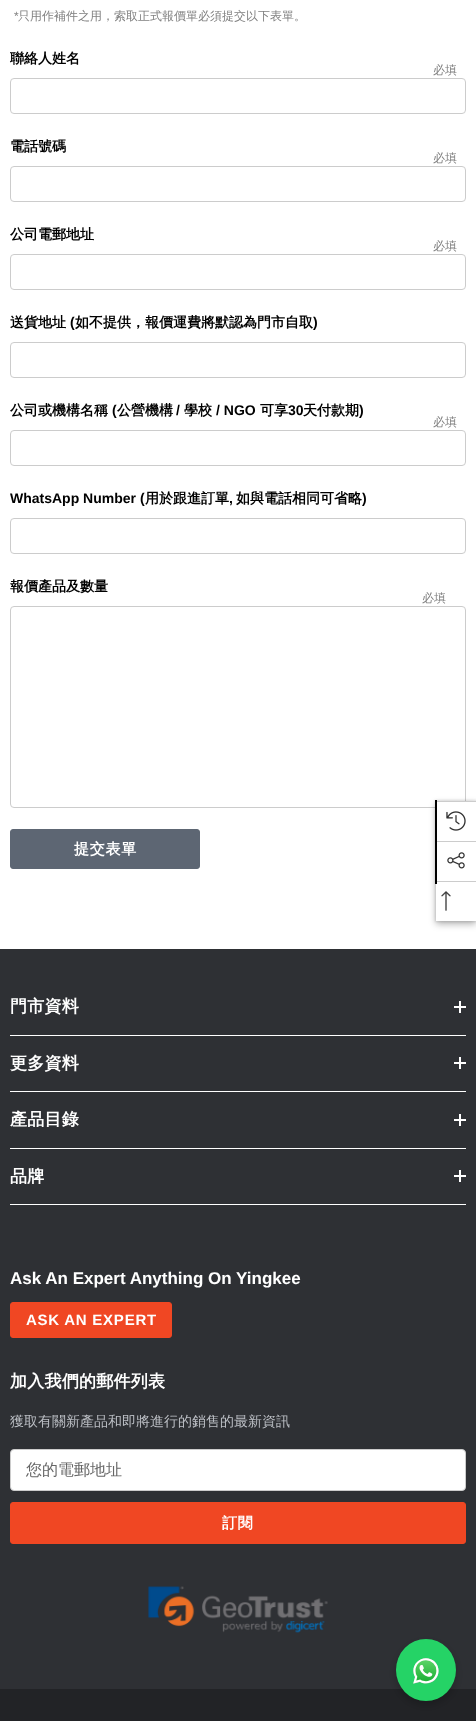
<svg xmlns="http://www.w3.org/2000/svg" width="476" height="1721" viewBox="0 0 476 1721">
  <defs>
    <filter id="blur1" x="-50%" y="-200%" width="200%" height="500%"><feGaussianBlur stdDeviation="3.5"/></filter>
    <filter id="blur2" x="-50%" y="-200%" width="200%" height="500%"><feGaussianBlur stdDeviation="1"/></filter>
    <filter id="blur3" x="-50%" y="-200%" width="200%" height="500%"><feGaussianBlur stdDeviation="4"/></filter>
  </defs>
  <rect width="100%" height="100%" fill="#ffffff"/>
  <text x="14" y="20" font-family="Arimo" font-size="12" fill="#808080">*</text>
  <text x="18" y="20" font-family="WenQuanYi Zen Hei" font-size="12" font-weight="500" fill="#808080">只用作補件之用，索取正式報價單必須提交以下表單。</text>
  <text x="10" y="63" font-family="WenQuanYi Zen Hei" font-size="14" font-weight="bold" fill="#000000">聯絡人姓名</text>
  <text x="433" y="74" font-family="WenQuanYi Zen Hei" font-size="12" font-weight="500" fill="#808080">必填</text>
  <rect x="10.5" y="78.5" width="455" height="35" rx="3.5" fill="none" stroke="#cccccc"/>
  <text x="10" y="151" font-family="WenQuanYi Zen Hei" font-size="14" font-weight="bold" fill="#000000">電話號碼</text>
  <text x="433" y="162" font-family="WenQuanYi Zen Hei" font-size="12" font-weight="500" fill="#808080">必填</text>
  <rect x="10.5" y="166.5" width="455" height="35" rx="3.5" fill="none" stroke="#cccccc"/>
  <text x="10" y="239" font-family="WenQuanYi Zen Hei" font-size="14" font-weight="bold" fill="#000000">公司電郵地址</text>
  <text x="433" y="250" font-family="WenQuanYi Zen Hei" font-size="12" font-weight="500" fill="#808080">必填</text>
  <rect x="10.5" y="254.5" width="455" height="35" rx="3.5" fill="none" stroke="#cccccc"/>
  <text x="10" y="327" font-family="WenQuanYi Zen Hei" font-size="14" font-weight="bold" fill="#000000">送貨地址</text>
  <text x="70" y="327" font-family="Arimo" font-size="14" font-weight="bold" fill="#000000">(</text>
  <text x="75" y="327" font-family="WenQuanYi Zen Hei" font-size="14" font-weight="bold" fill="#000000">如不提供，報價運費將默認為門市自取</text>
  <text x="313" y="327" font-family="Arimo" font-size="14" font-weight="bold" fill="#000000">)</text>
  <rect x="10.5" y="342.5" width="455" height="35" rx="3.5" fill="none" stroke="#cccccc"/>
  <text x="10" y="415" font-family="WenQuanYi Zen Hei" font-size="14" font-weight="bold" fill="#000000">公司或機構名稱</text>
  <text x="112" y="415" font-family="Arimo" font-size="14" font-weight="bold" fill="#000000">(</text>
  <text x="117" y="415" font-family="WenQuanYi Zen Hei" font-size="14" font-weight="bold" fill="#000000">公營機構</text>
  <text x="176" y="415" font-family="Arimo" font-size="14" font-weight="bold" fill="#000000">/</text>
  <text x="184" y="415" font-family="WenQuanYi Zen Hei" font-size="14" font-weight="bold" fill="#000000">學校</text>
  <text x="216" y="415" font-family="Arimo" font-size="14" font-weight="bold" fill="#000000">/ NGO</text>
  <text x="260" y="415" font-family="WenQuanYi Zen Hei" font-size="14" font-weight="bold" fill="#000000">可享</text>
  <text x="288" y="415" font-family="Arimo" font-size="14" font-weight="bold" fill="#000000">30</text>
  <text x="303" y="415" font-family="WenQuanYi Zen Hei" font-size="14" font-weight="bold" fill="#000000">天付款期</text>
  <text x="359" y="415" font-family="Arimo" font-size="14" font-weight="bold" fill="#000000">)</text>
  <text x="433" y="426" font-family="WenQuanYi Zen Hei" font-size="12" font-weight="500" fill="#808080">必填</text>
  <rect x="10.5" y="430.5" width="455" height="35" rx="3.5" fill="none" stroke="#cccccc"/>
  <text x="10" y="503" font-family="Arimo" font-size="14" font-weight="bold" fill="#000000">WhatsApp Number (</text>
  <text x="145" y="503" font-family="WenQuanYi Zen Hei" font-size="14" font-weight="bold" fill="#000000">用於跟進訂單</text>
  <text x="229" y="503" font-family="Arimo" font-size="14" font-weight="bold" fill="#000000">,</text>
  <text x="236" y="503" font-family="WenQuanYi Zen Hei" font-size="14" font-weight="bold" fill="#000000">如與電話相同可省略</text>
  <text x="362" y="503" font-family="Arimo" font-size="14" font-weight="bold" fill="#000000">)</text>
  <rect x="10.5" y="518.5" width="455" height="35" rx="3.5" fill="none" stroke="#cccccc"/>
  <text x="10" y="591" font-family="WenQuanYi Zen Hei" font-size="14" font-weight="bold" fill="#000000">報價產品及數量</text>
  <text x="422" y="602" font-family="WenQuanYi Zen Hei" font-size="12" font-weight="500" fill="#808080">必填</text>
  <rect x="10.5" y="606.5" width="455" height="201" rx="3.5" fill="none" stroke="#cccccc"/>
  <rect x="10.5" y="829.5" width="189" height="39" rx="2.5" fill="#5d6673" stroke="#5d6673"/>
  <text x="74" y="854" font-family="WenQuanYi Zen Hei" font-size="15" font-weight="bold" letter-spacing="0.75" fill="#ffffff">提交表單</text>
  <rect x="436" y="804" width="40" height="120" fill="#000000" fill-opacity="0.3" filter="url(#blur1)"/>
  <rect x="435" y="800" width="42" height="122" fill="#000000" fill-opacity="0.1" filter="url(#blur2)"/>
  <rect x="436" y="802" width="40" height="119" fill="#ffffff"/>
  <rect x="436" y="801" width="40" height="1" fill="#cccccc"/>
  <rect x="436" y="841" width="40" height="1" fill="#cccccc"/>
  <rect x="436" y="881" width="40" height="1" fill="#cccccc"/>
  <rect x="435" y="800" width="2" height="84" fill="#000000"/>
  <image x="446" y="811" width="20" height="20" href="img1.png"/>
  <image x="447" y="852" width="18" height="17" href="img2.png"/>
  <image x="441" y="891" width="10" height="20" href="img3.png"/>
  <rect x="0" y="949" width="476" height="740" fill="#2e3034"/>
  <rect x="10" y="1035" width="456" height="1" fill="#ffffff"/>
  <text x="10" y="1012" font-family="WenQuanYi Zen Hei" font-size="17" font-weight="bold" letter-spacing="0.25" fill="#ffffff">門市資料</text>
  <rect x="459" y="1001" width="2" height="12" fill="#ffffff"/>
  <rect x="454" y="1006" width="12" height="2" fill="#ffffff"/>
  <rect x="10" y="1091" width="456" height="1" fill="#ffffff"/>
  <text x="10" y="1069" font-family="WenQuanYi Zen Hei" font-size="17" font-weight="bold" letter-spacing="0.25" fill="#ffffff">更多資料</text>
  <rect x="459" y="1057" width="2" height="12" fill="#ffffff"/>
  <rect x="454" y="1062" width="12" height="2" fill="#ffffff"/>
  <rect x="10" y="1148" width="456" height="1" fill="#ffffff"/>
  <text x="10" y="1125" font-family="WenQuanYi Zen Hei" font-size="17" font-weight="bold" letter-spacing="0.25" fill="#ffffff">產品目錄</text>
  <rect x="459" y="1114" width="2" height="12" fill="#ffffff"/>
  <rect x="454" y="1119" width="12" height="2" fill="#ffffff"/>
  <rect x="10" y="1204" width="456" height="1" fill="#ffffff"/>
  <text x="10" y="1182" font-family="WenQuanYi Zen Hei" font-size="17" font-weight="bold" letter-spacing="0.25" fill="#ffffff">品牌</text>
  <rect x="459" y="1170" width="2" height="12" fill="#ffffff"/>
  <rect x="454" y="1175" width="12" height="2" fill="#ffffff"/>
  <text x="10" y="1284" font-family="Arimo" font-size="17" font-weight="bold" fill="#ffffff">Ask An Expert Anything On Yingkee</text>
  <rect x="10.5" y="1302.5" width="161" height="35" rx="2.5" fill="#f04723" stroke="#f04723"/>
  <text x="26" y="1325" font-family="Arimo" font-size="15" font-weight="bold" letter-spacing="0.75" fill="#ffffff">ASK AN EXPERT</text>
  <text x="10" y="1387" font-family="WenQuanYi Zen Hei" font-size="17" font-weight="bold" letter-spacing="0.25" fill="#ffffff">加入我們的郵件列表</text>
  <text x="10" y="1426" font-family="WenQuanYi Zen Hei" font-size="14" font-weight="500" fill="#bcbfc5">獲取有關新產品和即將進行的銷售的最新資訊</text>
  <rect x="10.5" y="1449.5" width="455" height="41" rx="3.5" fill="#ffffff" stroke="#cccccc"/>
  <text x="26" y="1475" font-family="WenQuanYi Zen Hei" font-size="16" font-weight="500" fill="#666666">您的電郵地址</text>
  <rect x="10.5" y="1502.5" width="455" height="41" rx="2.5" fill="#f04723" stroke="#f04723"/>
  <text x="222" y="1528" font-family="WenQuanYi Zen Hei" font-size="15" font-weight="bold" letter-spacing="0.75" fill="#ffffff">訂閱</text>
  <image x="148" y="1586" width="180" height="47" href="img4.png"/>
  <rect x="0" y="1689" width="476" height="32" fill="#222326"/>
  <rect x="396" y="1643" width="60" height="62" rx="30" fill="#000000" fill-opacity="0.2" filter="url(#blur3)"/>
  <ellipse cx="426" cy="1670" rx="30" ry="31" fill="#25d366"/>
  <image x="413" y="1658" width="26" height="26" href="img5.png"/>
</svg>
